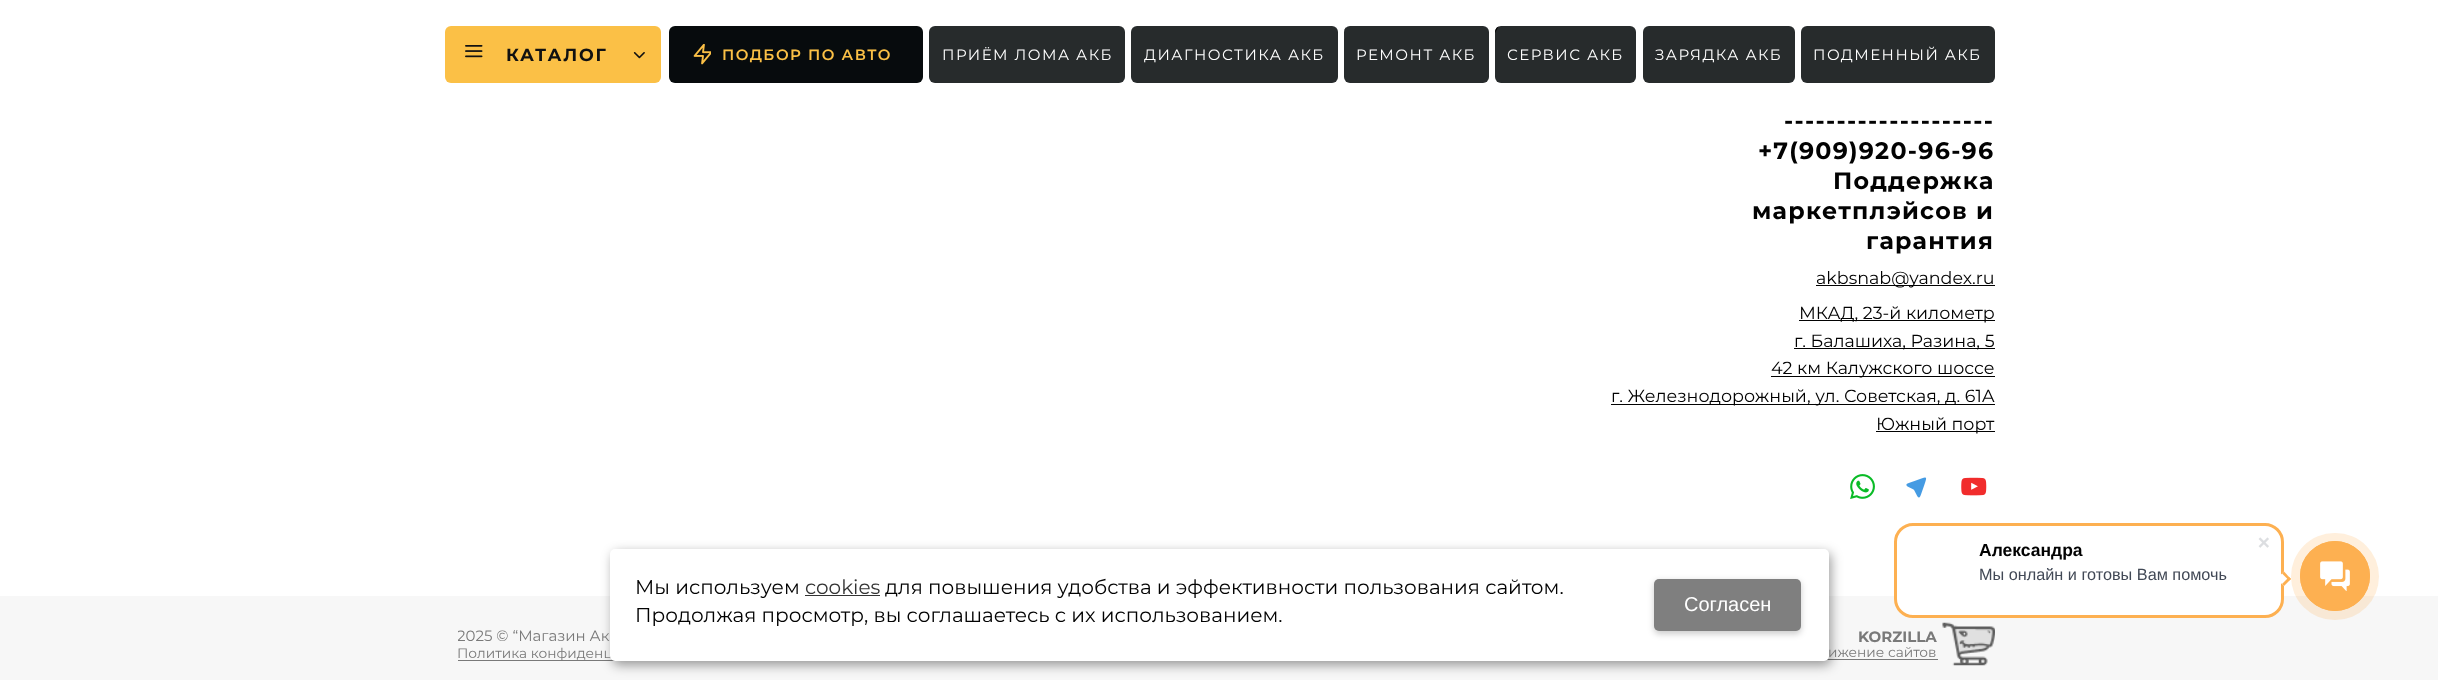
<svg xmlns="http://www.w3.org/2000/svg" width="2438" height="680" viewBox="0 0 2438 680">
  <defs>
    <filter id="blur1" x="-50%" y="-200%" width="200%" height="500%"><feGaussianBlur stdDeviation="6"/></filter>
    <filter id="blur2" x="-50%" y="-200%" width="200%" height="500%"><feGaussianBlur stdDeviation="3"/></filter>
    <clipPath id="clip1"><rect x="458" y="626" width="750" height="38"/></clipPath>
  </defs>
  <rect width="100%" height="100%" fill="#ffffff"/>
  <rect x="445" y="26" width="216" height="57" rx="6" fill="#fbc046"/>
  <image x="465" y="45" width="18" height="13" href="img1.png"/>
  <text x="506" y="61" font-family="Montserrat" font-size="17.5" font-weight="bold" letter-spacing="1.75" fill="#111111">КАТАЛОГ</text>
  <image x="633" y="52" width="12" height="7" href="img2.png"/>
  <rect x="669" y="26" width="254" height="57" rx="6" fill="#070b0d"/>
  <image x="693" y="44" width="18" height="21" href="img3.png"/>
  <text x="722" y="60" font-family="Montserrat" font-size="15" font-weight="600" letter-spacing="1.5" fill="#fbc046">ПОДБОР ПО АВТО</text>
  <rect x="929" y="26" width="196" height="57" rx="6" fill="#272b2c"/>
  <text x="942" y="60" font-family="Montserrat" font-size="15" letter-spacing="1.5" fill="#ffffff">ПРИЁМ ЛОМА АКБ</text>
  <rect x="1131" y="26" width="207" height="57" rx="6" fill="#272b2c"/>
  <text x="1144" y="60" font-family="Montserrat" font-size="15" letter-spacing="1.5" fill="#ffffff">ДИАГНОСТИКА АКБ</text>
  <rect x="1344" y="26" width="145" height="57" rx="6" fill="#272b2c"/>
  <path d="M1346 27.5L1344 31C1344.5 29.5 1345 28 1346 27.5Z" fill="#000000"/>
  <text x="1356" y="60" font-family="Montserrat" font-size="15" letter-spacing="1.5" fill="#ffffff">РЕМОНТ АКБ</text>
  <rect x="1495" y="26" width="141" height="57" rx="6" fill="#272b2c"/>
  <path d="M1498.5 26.5L1495 33C1495 30 1496 27.5 1498.5 26.5Z" fill="#000000"/>
  <text x="1507" y="60" font-family="Montserrat" font-size="15" letter-spacing="1.5" fill="#ffffff">СЕРВИС АКБ</text>
  <rect x="1643" y="26" width="152" height="57" rx="6" fill="#272b2c"/>
  <text x="1655" y="60" font-family="Montserrat" font-size="15" letter-spacing="1.5" fill="#ffffff">ЗАРЯДКА АКБ</text>
  <rect x="1801" y="26" width="194" height="57" rx="6" fill="#272b2c"/>
  <text x="1813" y="60" font-family="Montserrat" font-size="15" letter-spacing="1.5" fill="#ffffff">ПОДМЕННЫЙ АКБ</text>
  <text x="1784" y="129" font-family="Montserrat" font-size="23.75" font-weight="bold" letter-spacing="1.25" fill="#020202">--------------------</text>
  <text x="1758" y="159" font-family="Montserrat" font-size="23.75" font-weight="bold" letter-spacing="1.25" fill="#020202">+7(909)920-96-96</text>
  <text x="1833" y="189" font-family="Montserrat" font-size="23.75" font-weight="bold" letter-spacing="1.25" fill="#020202">Поддержка</text>
  <text x="1752" y="219" font-family="Montserrat" font-size="23.75" font-weight="bold" letter-spacing="1.25" fill="#020202">маркетплэйсов и</text>
  <text x="1866" y="249" font-family="Montserrat" font-size="23.75" font-weight="bold" letter-spacing="1.25" fill="#020202">гарантия</text>
  <rect x="1816" y="285" width="179" height="1" fill="#020202"/>
  <text x="1816" y="284" font-family="Montserrat" font-size="17.5" fill="#020202">akbsnab@yandex.ru</text>
  <rect x="1799" y="320" width="196" height="1" fill="#020202"/>
  <text x="1799" y="319" font-family="Montserrat" font-size="17.5" fill="#020202">МКАД, 23-й километр</text>
  <rect x="1794" y="348" width="201" height="1" fill="#020202"/>
  <text x="1794" y="347" font-family="Montserrat" font-size="17.5" fill="#020202">г. Балашиха, Разина, 5</text>
  <rect x="1771" y="376" width="224" height="1" fill="#020202"/>
  <text x="1771" y="374" font-family="Montserrat" font-size="17.5" fill="#020202">42 км Калужского шоссе</text>
  <rect x="1611" y="404" width="384" height="1" fill="#020202"/>
  <text x="1611" y="402" font-family="Montserrat" font-size="17.5" fill="#020202">г. Железнодорожный, ул. Советская, д. 61А</text>
  <rect x="1876" y="431" width="119" height="1" fill="#020202"/>
  <text x="1876" y="430" font-family="Montserrat" font-size="17.5" fill="#020202">Южный порт</text>
  <image x="1850" y="474" width="25" height="25" href="img4.png"/>
  <image x="1906" y="477" width="21" height="21" href="img5.png"/>
  <image x="1961" y="477" width="26" height="19" href="img6.png"/>
  <rect x="0" y="596" width="2438" height="84" fill="#f7f7f7"/>
  <rect x="1895.5" y="524.5" width="387" height="92" rx="17.5" fill="#ffffff" stroke="#fdb051" stroke-width="3"/>
  <text x="1979" y="556" font-family="Liberation Sans" font-size="17.5" font-weight="bold" fill="#020202">Александра</text>
  <text x="1979" y="580" font-family="Liberation Sans" font-size="16.25" fill="#424956">Мы онлайн и готовы Вам помочь</text>
  <image x="2258" y="537" width="11" height="11" href="img7.png"/>
  <path d="M2276.5 579L2284 571.5L2291 579L2284 586Z" fill="#ffffff"/>
  <path d="M2282 573.5L2284 571.5L2291 579L2289 580.5Z" fill="#fdb051"/>
  <path d="M2282 584L2289 577L2291 579L2284 586Z" fill="#fdb051"/>
  <rect x="2291" y="533" width="88" height="87" rx="43.5" fill="#fdb051" fill-opacity="0.2"/>
  <circle cx="2335" cy="576" r="34.5" fill="none" stroke="#fdb051"/>
  <circle cx="2335" cy="576" r="35" fill="#fdb051"/>
  <image x="2320" y="561" width="30" height="30" href="img8.png"/>
  <rect x="458" y="660" width="157" height="1" fill="#797979"/>
  <rect x="1827" y="659" width="111" height="1" fill="#797979"/>
  <rect x="613" y="553" width="1218" height="112" rx="5" fill="#000000" fill-opacity="0.4" filter="url(#blur1)"/>
  <text x="457" y="658" font-family="Montserrat" font-size="13.75" fill="#797979">Политика конфиденц</text>
  <rect x="610" y="549" width="1219" height="112" rx="5" fill="#ffffff"/>
  <text x="635" y="594" font-family="Montserrat" font-size="20" fill="#020202">Мы используем</text>
  <text x="805" y="594" font-family="Montserrat" font-size="20" fill="#333333">cookies</text>
  <rect x="805" y="595" width="75" height="1" fill="#333333"/>
  <text x="885" y="594" font-family="Montserrat" font-size="20" fill="#020202">для повышения удобства и эффективности пользования сайтом.</text>
  <text x="635" y="622" font-family="Montserrat" font-size="20" fill="#020202">Продолжая просмотр, вы соглашаетесь с их использованием.</text>
  <rect x="1654" y="581" width="147" height="53" rx="5" fill="#000000" fill-opacity="0.2" filter="url(#blur2)"/>
  <rect x="1654" y="579" width="147" height="52" rx="5" fill="#7f7f7f"/>
  <text x="1684" y="611" font-family="Liberation Sans" font-size="20" fill="#ffffff">Согласен</text>
  <g clip-path="url(#clip1)">
    <text x="457" y="641" font-family="Montserrat" font-size="15" fill="#797979">2025 © “Магазин Ак</text>
  </g>
  <image x="1942" y="622" width="53" height="44" href="img9.png"/>
  <text x="1858" y="642" font-family="Montserrat" font-size="15" font-weight="bold" fill="#797979">KORZILLA</text>
  <text x="1828" y="657" font-family="Montserrat" font-size="13.75" fill="#797979">ижение сайтов</text>
</svg>
